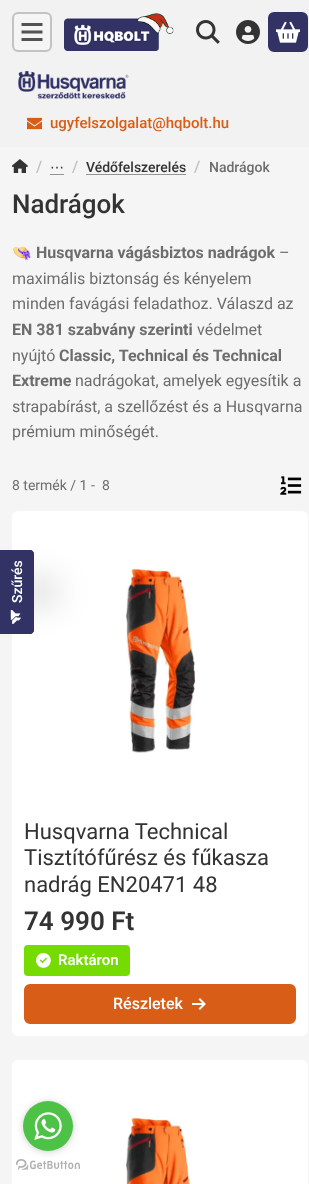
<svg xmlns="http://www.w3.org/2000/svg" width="309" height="1184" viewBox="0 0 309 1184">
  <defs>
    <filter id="blur1" x="-50%" y="-200%" width="200%" height="500%"><feGaussianBlur stdDeviation="15"/></filter>
    <filter id="blur2" x="-50%" y="-200%" width="200%" height="500%"><feGaussianBlur stdDeviation="3.5"/></filter>
  </defs>
  <rect width="100%" height="100%" fill="#f5f5f5"/>
  <rect x="0" y="0" width="309" height="147" fill="#f2f2f2"/>
  <rect x="13" y="13" width="38" height="38" rx="5" fill="#f5f5f5" stroke="#c2c2c2" stroke-width="2"/>
  <image x="21" y="23" width="22" height="18" href="img1.png"/>
  <image x="64" y="13" width="110" height="38" href="img2.png"/>
  <image x="196" y="20" width="24" height="24" href="img3.png"/>
  <image x="236" y="20" width="24" height="24" href="img4.png"/>
  <rect x="269" y="13" width="38" height="38" rx="5" fill="#323264" stroke="#323264" stroke-width="2"/>
  <image x="276" y="21" width="24" height="22" href="img5.png"/>
  <image x="18" y="71" width="111" height="28" href="img6.png"/>
  <image x="27" y="117" width="15" height="13" href="img7.png"/>
  <text x="50" y="128" font-family="Roboto" font-size="15" font-weight="500" fill="#d85d16">ugyfelszolgalat@hqbolt.hu</text>
  <image x="12" y="159" width="16" height="14" href="img8.png"/>
  <text x="36" y="172" font-family="Roboto" font-size="16" font-weight="500" fill="#c2c2c2">/</text>
  <text x="50" y="172" font-family="DejaVu Sans" font-size="14" fill="#333333">⋯</text>
  <rect x="50" y="174" width="14" height="1" fill="#949494"/>
  <text x="72" y="172" font-family="Roboto" font-size="16" font-weight="500" fill="#c2c2c2">/</text>
  <text x="86" y="172" font-family="Roboto" font-size="14" font-weight="500" fill="#333333">Védőfelszerelés</text>
  <rect x="86" y="174" width="100" height="1" fill="#949494"/>
  <text x="194" y="172" font-family="Roboto" font-size="16" font-weight="500" fill="#c2c2c2">/</text>
  <text x="209" y="172" font-family="Roboto" font-size="14" font-weight="500" fill="#6d6d6d">Nadrágok</text>
  <text x="12" y="213" font-family="Roboto" font-size="26" font-weight="500" fill="#333333">Nadrágok</text>
  <text x="12" y="258" font-family="Noto Color Emoji" font-size="16" font-weight="bold" fill="#6d6d6d">👒</text>
  <text x="36" y="258" font-family="Roboto" font-size="16" font-weight="bold" fill="#6d6d6d">Husqvarna vágásbiztos nadrágok</text>
  <text x="279" y="258" font-family="Roboto" font-size="16" fill="#6d6d6d">–</text>
  <text x="12" y="284" font-family="Roboto" font-size="16" fill="#6d6d6d">maximális biztonság és kényelem</text>
  <text x="12" y="309" font-family="Roboto" font-size="16" fill="#6d6d6d">minden favágási feladathoz. Válaszd az</text>
  <text x="12" y="335" font-family="Roboto" font-size="16" font-weight="bold" fill="#6d6d6d">EN 381 szabvány szerinti</text>
  <text x="197" y="335" font-family="Roboto" font-size="16" fill="#6d6d6d">védelmet</text>
  <text x="12" y="361" font-family="Roboto" font-size="16" fill="#6d6d6d">nyújtó</text>
  <text x="59" y="361" font-family="Roboto" font-size="16" font-weight="bold" fill="#6d6d6d">Classic, Technical és Technical</text>
  <text x="12" y="386" font-family="Roboto" font-size="16" font-weight="bold" fill="#6d6d6d">Extreme</text>
  <text x="75" y="386" font-family="Roboto" font-size="16" fill="#6d6d6d">nadrágokat, amelyek egyesítik a</text>
  <text x="12" y="412" font-family="Roboto" font-size="16" fill="#6d6d6d">strapabírást, a szellőzést és a Husqvarna</text>
  <text x="12" y="437" font-family="Roboto" font-size="16" fill="#6d6d6d">prémium minőségét.</text>
  <text x="12" y="490" font-family="Roboto" font-size="14" fill="#6d6d6d">8 termék / 1 -</text>
  <text x="102" y="490" font-family="Roboto" font-size="14" fill="#6d6d6d">8</text>
  <image x="280" y="476" width="22" height="19" href="img9.png"/>
  <rect x="12" y="511" width="296" height="525" rx="6" fill="#ffffff"/>
  <image x="126" y="568" width="70" height="185" href="img10.png"/>
  <text x="24" y="839" font-family="Roboto" font-size="22" fill="#333333">Husqvarna Technical</text>
  <text x="24" y="865" font-family="Roboto" font-size="22" fill="#333333">Tisztítófűrész és fűkasza</text>
  <text x="24" y="892" font-family="Roboto" font-size="22" fill="#333333">nadrág EN20471 48</text>
  <text x="24" y="930" font-family="Roboto" font-size="26" font-weight="600" fill="#333333">74 990 Ft</text>
  <rect x="25" y="946" width="104" height="29" rx="3" fill="#75db00" stroke="#75db00" stroke-width="2"/>
  <image x="36" y="953" width="15" height="15" href="img11.png"/>
  <text x="58" y="965" font-family="Roboto" font-size="15" font-weight="600" fill="#ffffff">Raktáron</text>
  <rect x="25" y="985" width="270" height="38" rx="5" fill="#d85d16" stroke="#d85d16" stroke-width="2"/>
  <text x="113" y="1009" font-family="Roboto" font-size="16" font-weight="500" fill="#ffffff">Részletek</text>
  <image x="192" y="998" width="14" height="12" href="img12.png"/>
  <rect x="12" y="1060" width="296" height="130" rx="6" fill="#ffffff"/>
  <image x="126" y="1117" width="66" height="67" href="img13.png"/>
  <rect x="-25" y="575" width="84" height="34" rx="4" fill="#000000" fill-opacity="0.1" filter="url(#blur1)"/>
  <path d="M0 634V550H30C32 550 34 552 34 554V630C34 632 32 634 30 634Z" fill="#323264"/>
  <path d="M1 633V551H30C31.5 551 33 552.5 33 554V630C33 631.5 31.5 633 30 633Z" fill="none" stroke="#323264" stroke-width="2"/>
  <text x="22" y="603" transform="rotate(-90 22 603)" font-family="Roboto" font-size="14" font-weight="500" fill="#ffffff">Szűrés</text>
  <image x="10" y="610" width="11" height="14" href="img14.png"/>
  <image x="16" y="1159" width="64" height="11" href="img16.png"/>
  <rect x="23" y="1102" width="50" height="50" rx="25" fill="#888888" fill-opacity="0.4" filter="url(#blur2)"/>
  <circle cx="48" cy="1126" r="25" fill="#4dc247"/>
  <image x="34" y="1112" width="28" height="28" href="img15.png"/>
</svg>
